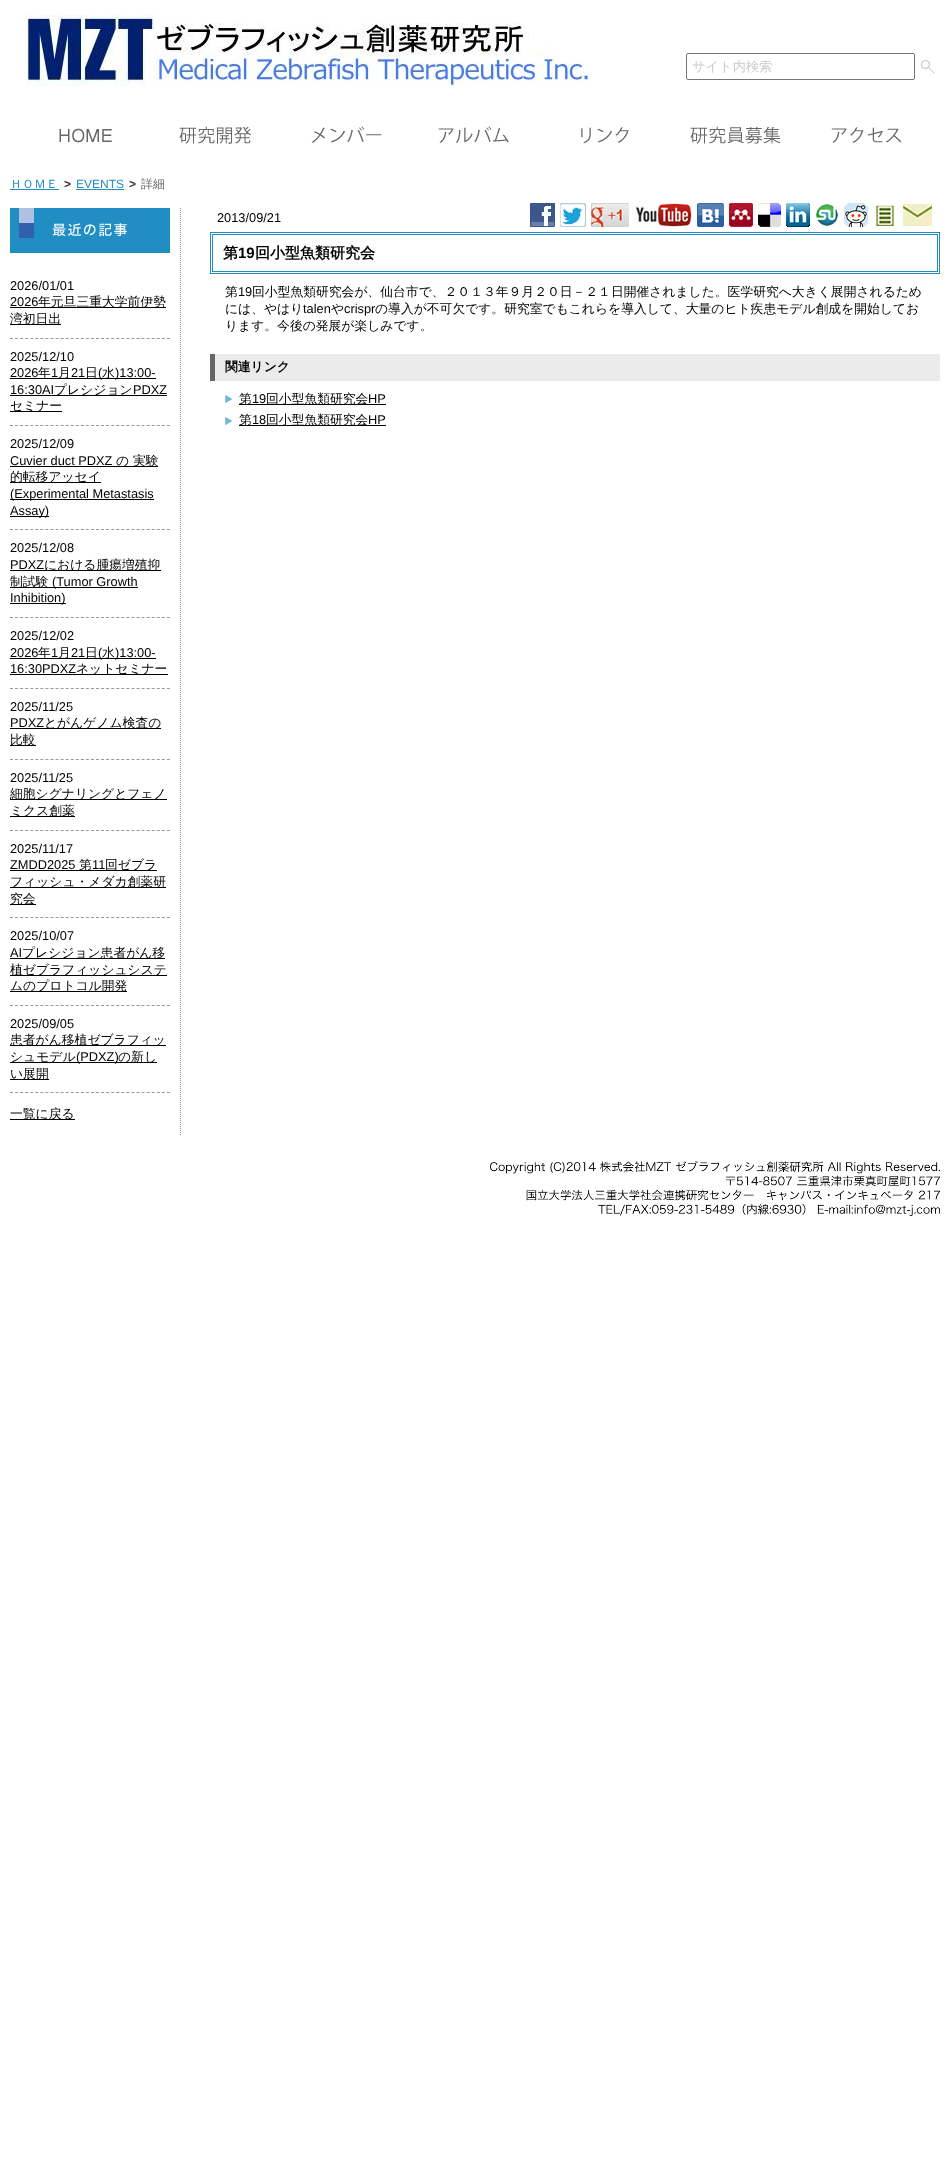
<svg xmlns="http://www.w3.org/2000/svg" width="950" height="2176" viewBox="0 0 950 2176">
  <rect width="100%" height="100%" fill="#ffffff"/>
  <image x="26" y="15" width="565" height="71" href="img1.png"/>
  <rect x="686.5" y="53.5" width="228" height="26" rx="1.5" fill="none" stroke="#767676"/>
  <text x="692" y="71" font-family="WenQuanYi Zen Hei" font-size="13.25" font-weight="500" fill="#cccccc">サイト内検索</text>
  <image x="921" y="60" width="14" height="14" href="img2.png"/>
  <image x="59" y="128" width="53" height="15" href="img3.png"/>
  <image x="179" y="126" width="73" height="18" href="img4.png"/>
  <image x="311" y="126" width="71" height="17" href="img5.png"/>
  <image x="438" y="126" width="71" height="17" href="img6.png"/>
  <image x="581" y="127" width="48" height="17" href="img7.png"/>
  <image x="690" y="126" width="91" height="18" href="img8.png"/>
  <image x="831" y="127" width="71" height="16" href="img9.png"/>
  <text x="10" y="188" font-family="WenQuanYi Zen Hei" font-size="12" font-weight="500" fill="#208dc3">ＨＯＭＥ</text>
  <rect x="10" y="189" width="49" height="1" fill="#208dc3"/>
  <text x="64" y="188" font-family="Liberation Sans" font-size="12" font-weight="bold" fill="#333333">&gt;</text>
  <text x="76" y="188" font-family="Liberation Sans" font-size="12" fill="#208dc3">EVENTS</text>
  <rect x="76" y="189" width="48" height="1" fill="#208dc3"/>
  <text x="129" y="188" font-family="Liberation Sans" font-size="12" font-weight="bold" fill="#333333">&gt;</text>
  <text x="141" y="188" font-family="WenQuanYi Zen Hei" font-size="12" font-weight="500" fill="#666666">詳細</text>
  <path d="M180.5 208V1136" fill="none" stroke="#999999" stroke-dasharray="1 1"/>
  <image x="10" y="208" width="160" height="45" href="img10.png"/>
  <path d="M10 338.5H170" fill="none" stroke="#999999" stroke-dasharray="3 2.06"/>
  <text x="10" y="290" font-family="Liberation Sans" font-size="12.8" fill="#000000">2026/01/01</text>
  <text x="10" y="306" font-family="Liberation Sans" font-size="12.8" fill="#000000">2026</text>
  <rect x="10" y="307" width="156" height="1" fill="#000000"/>
  <text x="38" y="306" font-family="WenQuanYi Zen Hei" font-size="12.8" font-weight="500" fill="#000000">年元旦三重大学前伊勢</text>
  <rect x="10" y="324" width="51" height="1" fill="#000000"/>
  <text x="10" y="323" font-family="WenQuanYi Zen Hei" font-size="12.8" font-weight="500" fill="#000000">湾初日出</text>
  <path d="M10 425.5H170" fill="none" stroke="#999999" stroke-dasharray="3 2.06"/>
  <text x="10" y="361" font-family="Liberation Sans" font-size="12.8" fill="#000000">2025/12/10</text>
  <text x="10" y="377" font-family="Liberation Sans" font-size="12.8" fill="#000000">2026</text>
  <rect x="10" y="378" width="146" height="1" fill="#000000"/>
  <text x="38" y="377" font-family="WenQuanYi Zen Hei" font-size="12.8" font-weight="500" fill="#000000">年</text>
  <text x="51" y="377" font-family="Liberation Sans" font-size="12.8" fill="#000000">1</text>
  <text x="58" y="377" font-family="WenQuanYi Zen Hei" font-size="12.8" font-weight="500" fill="#000000">月</text>
  <text x="71" y="377" font-family="Liberation Sans" font-size="12.8" fill="#000000">21</text>
  <text x="85" y="377" font-family="WenQuanYi Zen Hei" font-size="12.8" font-weight="500" fill="#000000">日</text>
  <text x="98" y="377" font-family="Liberation Sans" font-size="12.8" fill="#000000">(</text>
  <text x="102" y="377" font-family="WenQuanYi Zen Hei" font-size="12.8" font-weight="500" fill="#000000">水</text>
  <text x="115" y="377" font-family="Liberation Sans" font-size="12.8" fill="#000000">)13:00-</text>
  <text x="10" y="394" font-family="Liberation Sans" font-size="12.8" fill="#000000">16:30AI</text>
  <rect x="10" y="395" width="157" height="1" fill="#000000"/>
  <text x="54" y="394" font-family="WenQuanYi Zen Hei" font-size="12.8" font-weight="500" fill="#000000">プレシジョン</text>
  <text x="133" y="394" font-family="Liberation Sans" font-size="12.8" fill="#000000">PDXZ</text>
  <rect x="10" y="411" width="52" height="1" fill="#000000"/>
  <text x="10" y="410" font-family="WenQuanYi Zen Hei" font-size="12.8" font-weight="500" fill="#000000">セミナー</text>
  <path d="M10 529.5H170" fill="none" stroke="#999999" stroke-dasharray="3 2.06"/>
  <text x="10" y="448" font-family="Liberation Sans" font-size="12.8" fill="#000000">2025/12/09</text>
  <text x="10" y="465" font-family="Liberation Sans" font-size="12.8" fill="#000000">Cuvier duct PDXZ</text>
  <rect x="10" y="466" width="148" height="1" fill="#000000"/>
  <text x="116" y="465" font-family="WenQuanYi Zen Hei" font-size="12.8" font-weight="500" fill="#000000">の 実験</text>
  <rect x="10" y="482" width="91" height="1" fill="#000000"/>
  <text x="10" y="481" font-family="WenQuanYi Zen Hei" font-size="12.8" font-weight="500" fill="#000000">的転移アッセイ</text>
  <rect x="10" y="499" width="144" height="1" fill="#000000"/>
  <text x="10" y="498" font-family="Liberation Sans" font-size="12.8" fill="#000000">(Experimental Metastasis</text>
  <rect x="10" y="516" width="39" height="1" fill="#000000"/>
  <text x="10" y="515" font-family="Liberation Sans" font-size="12.8" fill="#000000">Assay)</text>
  <path d="M10 617.5H170" fill="none" stroke="#999999" stroke-dasharray="3 2.06"/>
  <text x="10" y="552" font-family="Liberation Sans" font-size="12.8" fill="#000000">2025/12/08</text>
  <text x="10" y="569" font-family="Liberation Sans" font-size="12.8" fill="#000000">PDXZ</text>
  <rect x="10" y="570" width="151" height="1" fill="#000000"/>
  <text x="44" y="569" font-family="WenQuanYi Zen Hei" font-size="12.8" font-weight="500" fill="#000000">における腫瘍増殖抑</text>
  <rect x="10" y="587" width="128" height="1" fill="#000000"/>
  <text x="10" y="586" font-family="WenQuanYi Zen Hei" font-size="12.8" font-weight="500" fill="#000000">制試験</text>
  <text x="52" y="586" font-family="Liberation Sans" font-size="12.8" fill="#000000">(Tumor Growth</text>
  <rect x="10" y="603" width="56" height="1" fill="#000000"/>
  <text x="10" y="602" font-family="Liberation Sans" font-size="12.8" fill="#000000">Inhibition)</text>
  <path d="M10 688.5H170" fill="none" stroke="#999999" stroke-dasharray="3 2.06"/>
  <text x="10" y="640" font-family="Liberation Sans" font-size="12.8" fill="#000000">2025/12/02</text>
  <text x="10" y="657" font-family="Liberation Sans" font-size="12.8" fill="#000000">2026</text>
  <rect x="10" y="658" width="146" height="1" fill="#000000"/>
  <text x="38" y="657" font-family="WenQuanYi Zen Hei" font-size="12.8" font-weight="500" fill="#000000">年</text>
  <text x="51" y="657" font-family="Liberation Sans" font-size="12.8" fill="#000000">1</text>
  <text x="58" y="657" font-family="WenQuanYi Zen Hei" font-size="12.8" font-weight="500" fill="#000000">月</text>
  <text x="71" y="657" font-family="Liberation Sans" font-size="12.8" fill="#000000">21</text>
  <text x="85" y="657" font-family="WenQuanYi Zen Hei" font-size="12.8" font-weight="500" fill="#000000">日</text>
  <text x="98" y="657" font-family="Liberation Sans" font-size="12.8" fill="#000000">(</text>
  <text x="102" y="657" font-family="WenQuanYi Zen Hei" font-size="12.8" font-weight="500" fill="#000000">水</text>
  <text x="115" y="657" font-family="Liberation Sans" font-size="12.8" fill="#000000">)13:00-</text>
  <text x="10" y="673" font-family="Liberation Sans" font-size="12.8" fill="#000000">16:30PDXZ</text>
  <rect x="10" y="674" width="158" height="1" fill="#000000"/>
  <text x="76" y="673" font-family="WenQuanYi Zen Hei" font-size="12.8" font-weight="500" fill="#000000">ネットセミナー</text>
  <path d="M10 759.5H170" fill="none" stroke="#999999" stroke-dasharray="3 2.06"/>
  <text x="10" y="711" font-family="Liberation Sans" font-size="12.8" fill="#000000">2025/11/25</text>
  <text x="10" y="727" font-family="Liberation Sans" font-size="12.8" fill="#000000">PDXZ</text>
  <rect x="10" y="728" width="151" height="1" fill="#000000"/>
  <text x="44" y="727" font-family="WenQuanYi Zen Hei" font-size="12.8" font-weight="500" fill="#000000">とがんゲノム検査の</text>
  <rect x="10" y="745" width="26" height="1" fill="#000000"/>
  <text x="10" y="744" font-family="WenQuanYi Zen Hei" font-size="12.8" font-weight="500" fill="#000000">比較</text>
  <path d="M10 830.5H170" fill="none" stroke="#999999" stroke-dasharray="3 2.06"/>
  <text x="10" y="782" font-family="Liberation Sans" font-size="12.8" fill="#000000">2025/11/25</text>
  <rect x="10" y="799" width="157" height="1" fill="#000000"/>
  <text x="10" y="798" font-family="WenQuanYi Zen Hei" font-size="12.8" font-weight="500" fill="#000000">細胞シグナリングとフェノ</text>
  <rect x="10" y="816" width="65" height="1" fill="#000000"/>
  <text x="10" y="815" font-family="WenQuanYi Zen Hei" font-size="12.8" font-weight="500" fill="#000000">ミクス創薬</text>
  <path d="M10 917.5H170" fill="none" stroke="#999999" stroke-dasharray="3 2.06"/>
  <text x="10" y="853" font-family="Liberation Sans" font-size="12.8" fill="#000000">2025/11/17</text>
  <text x="10" y="869" font-family="Liberation Sans" font-size="12.8" fill="#000000">ZMDD2025</text>
  <rect x="10" y="870" width="147" height="1" fill="#000000"/>
  <text x="79" y="869" font-family="WenQuanYi Zen Hei" font-size="12.8" font-weight="500" fill="#000000">第</text>
  <text x="92" y="869" font-family="Liberation Sans" font-size="12.8" fill="#000000">11</text>
  <text x="105" y="869" font-family="WenQuanYi Zen Hei" font-size="12.8" font-weight="500" fill="#000000">回ゼブラ</text>
  <rect x="10" y="887" width="156" height="1" fill="#000000"/>
  <text x="10" y="886" font-family="WenQuanYi Zen Hei" font-size="12.8" font-weight="500" fill="#000000">フィッシュ・メダカ創薬研</text>
  <rect x="10" y="904" width="26" height="1" fill="#000000"/>
  <text x="10" y="903" font-family="WenQuanYi Zen Hei" font-size="12.8" font-weight="500" fill="#000000">究会</text>
  <path d="M10 1005.5H170" fill="none" stroke="#999999" stroke-dasharray="3 2.06"/>
  <text x="10" y="940" font-family="Liberation Sans" font-size="12.8" fill="#000000">2025/10/07</text>
  <text x="10" y="957" font-family="Liberation Sans" font-size="12.8" fill="#000000">AI</text>
  <rect x="10" y="958" width="155" height="1" fill="#000000"/>
  <text x="22" y="957" font-family="WenQuanYi Zen Hei" font-size="12.8" font-weight="500" fill="#000000">プレシジョン患者がん移</text>
  <rect x="10" y="975" width="157" height="1" fill="#000000"/>
  <text x="10" y="974" font-family="WenQuanYi Zen Hei" font-size="12.8" font-weight="500" fill="#000000">植ゼブラフィッシュシステ</text>
  <rect x="10" y="991" width="117" height="1" fill="#000000"/>
  <text x="10" y="990" font-family="WenQuanYi Zen Hei" font-size="12.8" font-weight="500" fill="#000000">ムのプロトコル開発</text>
  <path d="M10 1092.5H170" fill="none" stroke="#999999" stroke-dasharray="3 2.06"/>
  <text x="10" y="1028" font-family="Liberation Sans" font-size="12.8" fill="#000000">2025/09/05</text>
  <rect x="10" y="1045" width="156" height="1" fill="#000000"/>
  <text x="10" y="1044" font-family="WenQuanYi Zen Hei" font-size="12.8" font-weight="500" fill="#000000">患者がん移植ゼブラフィッ</text>
  <rect x="10" y="1062" width="147" height="1" fill="#000000"/>
  <text x="10" y="1061" font-family="WenQuanYi Zen Hei" font-size="12.8" font-weight="500" fill="#000000">シュモデル</text>
  <text x="76" y="1061" font-family="Liberation Sans" font-size="12.8" fill="#000000">(PDXZ)</text>
  <text x="118" y="1061" font-family="WenQuanYi Zen Hei" font-size="12.8" font-weight="500" fill="#000000">の新し</text>
  <rect x="10" y="1079" width="39" height="1" fill="#000000"/>
  <text x="10" y="1078" font-family="WenQuanYi Zen Hei" font-size="12.8" font-weight="500" fill="#000000">い展開</text>
  <rect x="10" y="1119" width="65" height="1" fill="#000000"/>
  <text x="10" y="1118" font-family="WenQuanYi Zen Hei" font-size="12.8" font-weight="500" fill="#000000">一覧に戻る</text>
  <text x="217" y="222" font-family="Liberation Sans" font-size="12.8" fill="#000000">2013/09/21</text>
  <image x="530" y="203" width="25" height="24" href="img11.png"/>
  <image x="560" y="203" width="26" height="24" href="img12.png"/>
  <image x="591" y="203" width="38" height="24" href="img13.png"/>
  <image x="635" y="203" width="57" height="24" href="img14.png"/>
  <image x="697" y="203" width="27" height="24" href="img15.png"/>
  <image x="729" y="203" width="24" height="24" href="img16.png"/>
  <image x="758" y="203" width="23" height="24" href="img17.png"/>
  <image x="786" y="203" width="24" height="24" href="img18.png"/>
  <image x="816" y="204" width="22" height="22" href="img19.png"/>
  <image x="844" y="203" width="24" height="24" href="img20.png"/>
  <image x="873" y="204" width="22" height="23" href="img21.png"/>
  <image x="902" y="203" width="31" height="24" href="img22.png"/>
  <rect x="210.5" y="232.5" width="729" height="41" fill="none" stroke="#208dc3"/>
  <rect x="212.5" y="234.5" width="725" height="37" fill="none" stroke="#208dc3"/>
  <text x="223" y="258" font-family="WenQuanYi Zen Hei" font-size="15" font-weight="bold" fill="#000000">第</text>
  <text x="238" y="258" font-family="Liberation Sans" font-size="15" font-weight="bold" fill="#000000">19</text>
  <text x="255" y="258" font-family="WenQuanYi Zen Hei" font-size="15" font-weight="bold" fill="#000000">回小型魚類研究会</text>
  <text x="225" y="296" font-family="WenQuanYi Zen Hei" font-size="12.8" font-weight="500" fill="#000000">第</text>
  <text x="238" y="296" font-family="Liberation Sans" font-size="12.8" fill="#000000">19</text>
  <text x="252" y="296" font-family="WenQuanYi Zen Hei" font-size="12.8" font-weight="500" fill="#000000">回小型魚類研究会が、仙台市で、２０１３年９月２０日－２１日開催されました。医学研究へ大きく展開されるため</text>
  <text x="225" y="313" font-family="WenQuanYi Zen Hei" font-size="12.8" font-weight="500" fill="#000000">には、やはり</text>
  <text x="303" y="313" font-family="Liberation Sans" font-size="12.8" fill="#000000">talen</text>
  <text x="331" y="313" font-family="WenQuanYi Zen Hei" font-size="12.8" font-weight="500" fill="#000000">や</text>
  <text x="344" y="313" font-family="Liberation Sans" font-size="12.8" fill="#000000">crispr</text>
  <text x="375" y="313" font-family="WenQuanYi Zen Hei" font-size="12.8" font-weight="500" fill="#000000">の導入が不可欠です。研究室でもこれらを導入して、大量のヒト疾患モデル創成を開始してお</text>
  <text x="225" y="330" font-family="WenQuanYi Zen Hei" font-size="12.8" font-weight="500" fill="#000000">ります。今後の発展が楽しみです。</text>
  <rect x="215" y="354" width="725" height="27" fill="#ebebeb"/>
  <rect x="210" y="354" width="5" height="27" fill="#666666"/>
  <text x="225" y="371" font-family="WenQuanYi Zen Hei" font-size="12.8" font-weight="bold" fill="#000000">関連リンク</text>
  <image x="225" y="395" width="8" height="8" href="img23.png"/>
  <rect x="239" y="404" width="147" height="1" fill="#000000"/>
  <text x="239" y="403" font-family="WenQuanYi Zen Hei" font-size="12.8" font-weight="500" fill="#000000">第</text>
  <text x="252" y="403" font-family="Liberation Sans" font-size="12.8" fill="#000000">19</text>
  <text x="266" y="403" font-family="WenQuanYi Zen Hei" font-size="12.8" font-weight="500" fill="#000000">回小型魚類研究会</text>
  <text x="368" y="403" font-family="Liberation Sans" font-size="12.8" fill="#000000">HP</text>
  <image x="225" y="417" width="8" height="8" href="img23.png"/>
  <rect x="239" y="425" width="147" height="1" fill="#000000"/>
  <text x="239" y="424" font-family="WenQuanYi Zen Hei" font-size="12.8" font-weight="500" fill="#000000">第</text>
  <text x="252" y="424" font-family="Liberation Sans" font-size="12.8" fill="#000000">18</text>
  <text x="266" y="424" font-family="WenQuanYi Zen Hei" font-size="12.8" font-weight="500" fill="#000000">回小型魚類研究会</text>
  <text x="368" y="424" font-family="Liberation Sans" font-size="12.8" fill="#000000">HP</text>
  <image x="490" y="1161" width="450" height="55" href="img24.png"/>
</svg>
